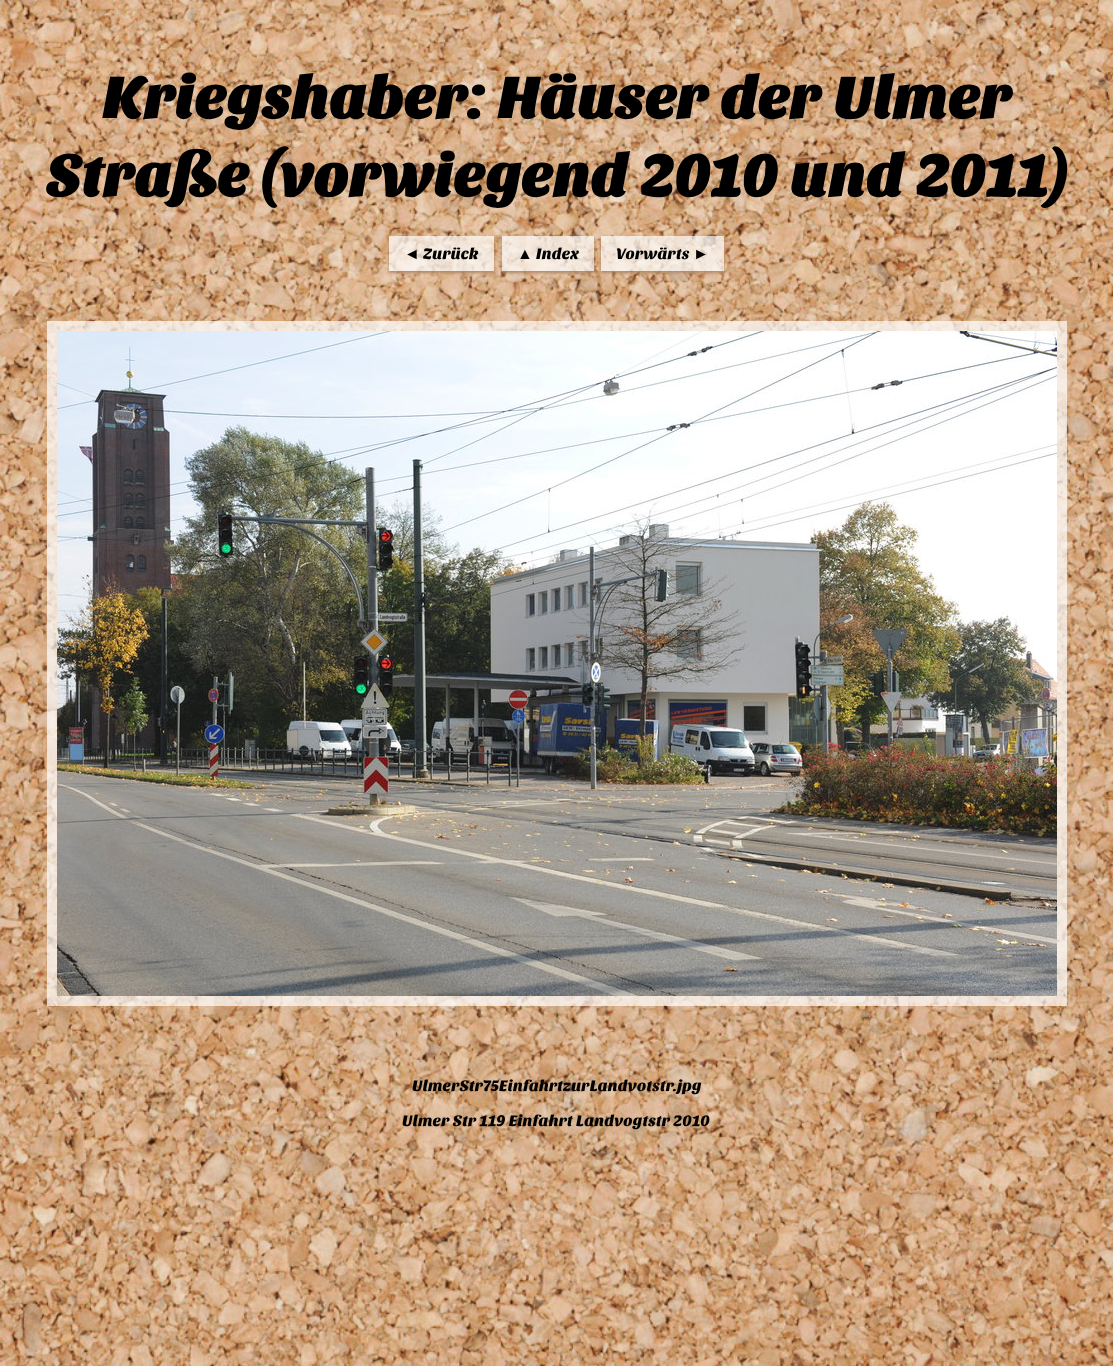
<svg xmlns="http://www.w3.org/2000/svg" width="1113" height="1366" viewBox="0 0 1113 1366">
  <defs>
    <clipPath id="clip1"><path d="M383 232H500V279H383ZM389 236H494V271H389Z" clip-rule="evenodd"/></clipPath>
    <filter id="blur1" x="-50%" y="-200%" width="200%" height="500%"><feGaussianBlur stdDeviation="1.5"/></filter>
    <clipPath id="clip2"><path d="M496 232H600V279H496ZM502 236H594V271H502Z" clip-rule="evenodd"/></clipPath>
    <clipPath id="clip3"><path d="M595 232H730V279H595ZM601 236H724V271H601Z" clip-rule="evenodd"/></clipPath>
  </defs>
  <rect width="100%" height="100%" fill="#ffffff"/>
  <image x="0" y="0" width="1113" height="1366" href="img1.png"/>
  <text x="102" y="118" font-family="Sansita One" font-size="60" font-weight="bold" fill="#000000">Kriegshaber: Häuser der Ulmer</text>
  <text x="46" y="196" font-family="Sansita One" font-size="60" font-weight="bold" fill="#000000">Straße (vorwiegend 2010 und 2011)</text>
  <g clip-path="url(#clip1)">
    <rect x="389" y="238" width="105" height="35" fill="#b08868" filter="url(#blur1)"/>
  </g>
  <rect x="389" y="236" width="105" height="35" fill="#ffffff" fill-opacity="0.7"/>
  <text x="404" y="259" font-family="Liberation Sans" font-size="16" fill="#000000">◄</text>
  <text x="423" y="259" font-family="Sansita One" font-size="16" fill="#000000">Zurück</text>
  <g clip-path="url(#clip2)">
    <rect x="502" y="238" width="92" height="35" fill="#b08868" filter="url(#blur1)"/>
  </g>
  <rect x="502" y="236" width="92" height="35" fill="#ffffff" fill-opacity="0.7"/>
  <text x="517" y="259" font-family="Liberation Sans" font-size="16" fill="#000000">▲</text>
  <text x="536" y="259" font-family="Sansita One" font-size="16" fill="#000000">Index</text>
  <g clip-path="url(#clip3)">
    <rect x="601" y="238" width="123" height="35" fill="#b08868" filter="url(#blur1)"/>
  </g>
  <rect x="601" y="236" width="123" height="35" fill="#ffffff" fill-opacity="0.7"/>
  <text x="616" y="259" font-family="Sansita One" font-size="16" fill="#000000">Vorwärts</text>
  <text x="693" y="259" font-family="Liberation Sans" font-size="16" fill="#000000">►</text>
  <rect x="52" y="326" width="1010" height="675" fill="none" stroke="#ffffff" stroke-opacity="0.7" stroke-width="10"/>
  <image x="57" y="331" width="1000" height="665" href="img2.png"/>
  <text x="412" y="1091" font-family="Sansita One" font-size="16" fill="#000000">UlmerStr75EinfahrtzurLandvotstr.jpg</text>
  <text x="402" y="1126" font-family="Sansita One" font-size="16" fill="#000000">Ulmer Str 119 Einfahrt Landvogtstr 2010</text>
</svg>
